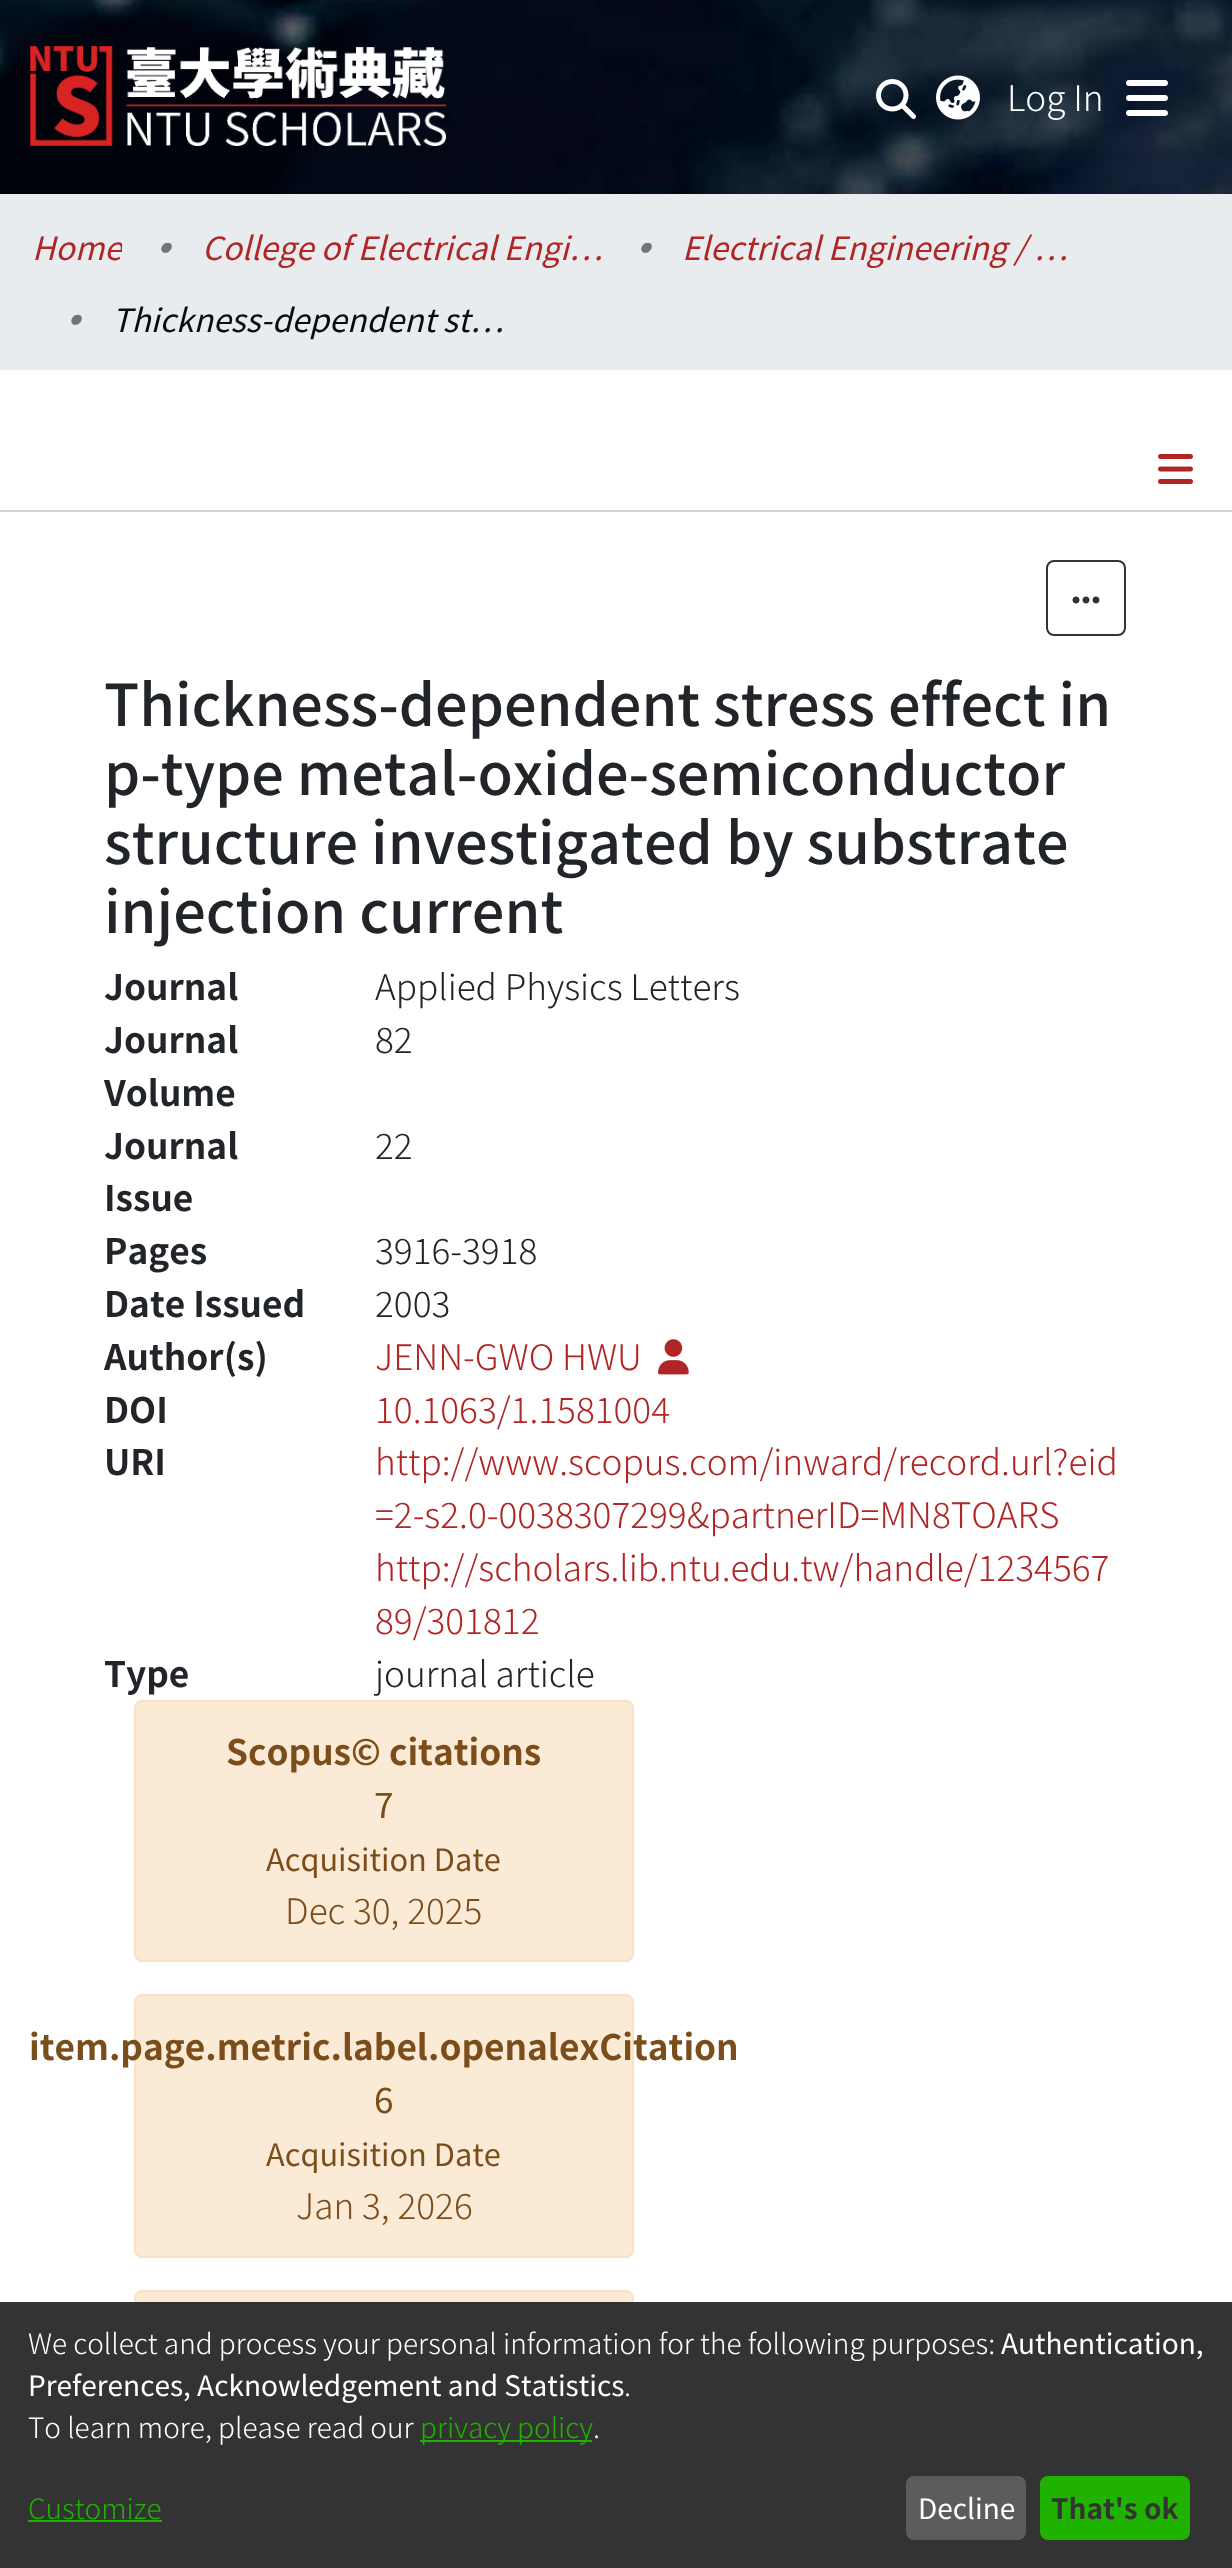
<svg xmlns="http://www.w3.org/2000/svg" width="1232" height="2568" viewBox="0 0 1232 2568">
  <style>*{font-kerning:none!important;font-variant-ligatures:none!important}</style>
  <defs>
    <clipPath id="clip1"><rect x="32" y="222" width="90" height="48"/></clipPath>
  </defs>
  <rect width="100%" height="100%" fill="#ffffff"/>
  <image x="0" y="0" width="1232" height="194" href="img1.png"/>
  <image x="30" y="46" width="416" height="100" href="img2.png"/>
  <image x="876" y="79" width="40" height="40" href="img3.png"/>
  <image x="936" y="75" width="44" height="45" href="img4.png"/>
  <text x="1007" y="111" font-family="Noto Sans TC" font-size="35.2" font-weight="300" fill="#ffffff">Log In</text>
  <image x="1126" y="80" width="42" height="36" href="img5.png"/>
  <rect x="0" y="194" width="1232" height="176" fill="#e9ecef"/>
  <g clip-path="url(#clip1)">
    <text x="32" y="260" font-family="Noto Sans TC" font-size="32" font-style="italic" fill="#b02626">Home</text>
  </g>
  <text x="138" y="266" font-family="Noto Sans TC" font-size="48" font-style="italic" fill="#6c757d">•</text>
  <text x="202" y="260" font-family="Noto Sans TC" font-size="32" font-style="italic" fill="#b02626">College of Electrical Engi…</text>
  <text x="618" y="266" font-family="Noto Sans TC" font-size="48" font-style="italic" fill="#6c757d">•</text>
  <text x="682" y="260" font-family="Noto Sans TC" font-size="32" font-style="italic" fill="#b02626">Electrical Engineering / …</text>
  <text x="48" y="338" font-family="Noto Sans TC" font-size="48" font-style="italic" fill="#6c757d">•</text>
  <text x="112" y="332" font-family="Noto Sans TC" font-size="32" font-style="italic" fill="#040d11">Thickness-dependent st…</text>
  <image x="1158" y="454" width="35" height="30" href="img6.png"/>
  <rect x="0" y="510" width="1232" height="2" fill="#ced4da"/>
  <rect x="1047" y="561" width="78" height="74" rx="7" fill="none" stroke="#333333" stroke-width="2"/>
  <image x="1072" y="596" width="28" height="8" href="img7.png"/>
  <text x="104" y="726" font-family="Noto Sans TC" font-size="57.6" font-weight="500" fill="#212529">Thickness-dependent stress effect in</text>
  <text x="104" y="795" font-family="Noto Sans TC" font-size="57.6" font-weight="500" fill="#212529">p-type metal-oxide-semiconductor</text>
  <text x="104" y="864" font-family="Noto Sans TC" font-size="57.6" font-weight="500" fill="#212529">structure investigated</text>
  <text x="726" y="864" font-family="Noto Sans TC" font-size="57.6" font-weight="500" fill="#212529">by substrate</text>
  <text x="104" y="933" font-family="Noto Sans TC" font-size="57.6" font-weight="500" fill="#212529">injection current</text>
  <text x="104" y="1000" font-family="Noto Sans TC" font-size="35.2" font-weight="bold" fill="#212529">Journal</text>
  <text x="375" y="1000" font-family="Noto Sans TC" font-size="35.2" font-weight="300" fill="#212529">Applied Physics Letters</text>
  <text x="104" y="1053" font-family="Noto Sans TC" font-size="35.2" font-weight="bold" fill="#212529">Journal</text>
  <text x="104" y="1106" font-family="Noto Sans TC" font-size="35.2" font-weight="bold" fill="#212529">Volume</text>
  <text x="375" y="1053" font-family="Noto Sans TC" font-size="35.2" font-weight="300" fill="#212529">82</text>
  <text x="104" y="1159" font-family="Noto Sans TC" font-size="35.2" font-weight="bold" fill="#212529">Journal</text>
  <text x="104" y="1211" font-family="Noto Sans TC" font-size="35.2" font-weight="bold" fill="#212529">Issue</text>
  <text x="375" y="1159" font-family="Noto Sans TC" font-size="35.2" font-weight="300" fill="#212529">22</text>
  <text x="104" y="1264" font-family="Noto Sans TC" font-size="35.2" font-weight="bold" fill="#212529">Pages</text>
  <text x="375" y="1264" font-family="Noto Sans TC" font-size="35.2" font-weight="300" fill="#212529">3916-3918</text>
  <text x="104" y="1317" font-family="Noto Sans TC" font-size="35.2" font-weight="bold" fill="#212529">Date Issued</text>
  <text x="375" y="1317" font-family="Noto Sans TC" font-size="35.2" font-weight="300" fill="#212529">2003</text>
  <text x="104" y="1370" font-family="Noto Sans TC" font-size="35.2" font-weight="bold" fill="#212529">Author(s)</text>
  <text x="375" y="1370" font-family="Noto Sans TC" font-size="35.2" font-weight="300" fill="#b02626">JENN-GWO HWU</text>
  <image x="658" y="1339" width="31" height="36" href="img8.png"/>
  <text x="104" y="1423" font-family="Noto Sans TC" font-size="35.2" font-weight="bold" fill="#212529">DOI</text>
  <text x="375" y="1423" font-family="Noto Sans TC" font-size="35.2" font-weight="300" fill="#b02626">10.1063/1.1581004</text>
  <text x="104" y="1475" font-family="Noto Sans TC" font-size="35.2" font-weight="bold" fill="#212529">URI</text>
  <text x="375" y="1475" font-family="Noto Sans TC" font-size="35.2" font-weight="300" fill="#b02626">http://www.scopus.com/inward/record.url?eid</text>
  <text x="375" y="1528" font-family="Noto Sans TC" font-size="35.2" font-weight="300" fill="#b02626">=2-s2.0-0038307299&amp;partnerID=MN8TOARS</text>
  <text x="375" y="1581" font-family="Noto Sans TC" font-size="35.2" font-weight="300" fill="#b02626">http://scholars.lib.ntu.edu.tw/handle/1234567</text>
  <text x="375" y="1634" font-family="Noto Sans TC" font-size="35.2" font-weight="300" fill="#b02626">89/301812</text>
  <text x="104" y="1687" font-family="Noto Sans TC" font-size="35.2" font-weight="bold" fill="#212529">Type</text>
  <text x="375" y="1687" font-family="Noto Sans TC" font-size="35.2" font-weight="300" fill="#212529">journal article</text>
  <rect x="135" y="1701" width="498" height="260" rx="7" fill="#fbead6" stroke="#fae1c6" stroke-width="2"/>
  <text x="226" y="1765" font-family="Noto Sans TC" font-size="35.2" font-weight="bold" fill="#7b4d1b">Scopus© citations</text>
  <text x="374" y="1818" font-family="Noto Sans TC" font-size="35.2" fill="#7b4d1b">7</text>
  <text x="266" y="1871" font-family="Noto Sans TC" font-size="30.75" fill="#7b4d1b">Acquisition Date</text>
  <text x="285" y="1924" font-family="Noto Sans TC" font-size="35.2" font-weight="300" fill="#7b4d1b">Dec 30, 2025</text>
  <rect x="135" y="1995" width="498" height="262" rx="7" fill="#fbead6" stroke="#fae1c6" stroke-width="2"/>
  <text x="29" y="2060" font-family="Noto Sans TC" font-size="35.2" font-weight="bold" fill="#7b4d1b">item.page.metric.label.openalexCitation</text>
  <text x="374" y="2113" font-family="Noto Sans TC" font-size="35.2" fill="#7b4d1b">6</text>
  <text x="266" y="2166" font-family="Noto Sans TC" font-size="30.75" fill="#7b4d1b">Acquisition Date</text>
  <text x="296" y="2219" font-family="Noto Sans TC" font-size="35.2" font-weight="300" fill="#7b4d1b">Jan 3, 2026</text>
  <rect x="135" y="2291" width="498" height="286" rx="7" fill="#fbead6" stroke="#fae1c6" stroke-width="2"/>
  <rect x="0" y="2302" width="1232" height="266" fill="#333333"/>
  <text x="28" y="2354" font-family="Noto Sans TC" font-size="28" font-weight="300" fill="#ffffff">We collect and process your personal information for the following purposes:</text>
  <text x="1001" y="2354" font-family="Noto Sans TC" font-size="28" fill="#ffffff">Authentication,</text>
  <text x="28" y="2396" font-family="Noto Sans TC" font-size="28" fill="#ffffff">Preferences, Acknowledgement and Statistics</text>
  <text x="624" y="2396" font-family="Noto Sans TC" font-size="28" font-weight="300" fill="#ffffff">.</text>
  <text x="28" y="2438" font-family="Noto Sans TC" font-size="28" font-weight="300" fill="#ffffff">To learn more, please read our</text>
  <rect x="420" y="2440" width="172" height="2" fill="#1fb300"/>
  <text x="420" y="2438" font-family="Noto Sans TC" font-size="28" font-weight="300" fill="#1fb300">privacy policy</text>
  <text x="593" y="2438" font-family="Noto Sans TC" font-size="28" font-weight="300" fill="#ffffff">.</text>
  <text x="28" y="2519" font-family="Noto Sans TC" font-size="28" font-weight="300" fill="#1fb300">Customize</text>
  <rect x="28" y="2520" width="134" height="2" fill="#1fb300"/>
  <rect x="906" y="2476" width="120" height="64" rx="8" fill="#5c5c5c"/>
  <text x="918" y="2519" font-family="Noto Sans TC" font-size="28" fill="#ffffff">Decline</text>
  <rect x="1040" y="2476" width="150" height="64" rx="8" fill="#1fb300"/>
  <text x="1051" y="2519" font-family="Noto Sans TC" font-size="28" font-weight="bold" fill="#333333">That's ok</text>
</svg>
